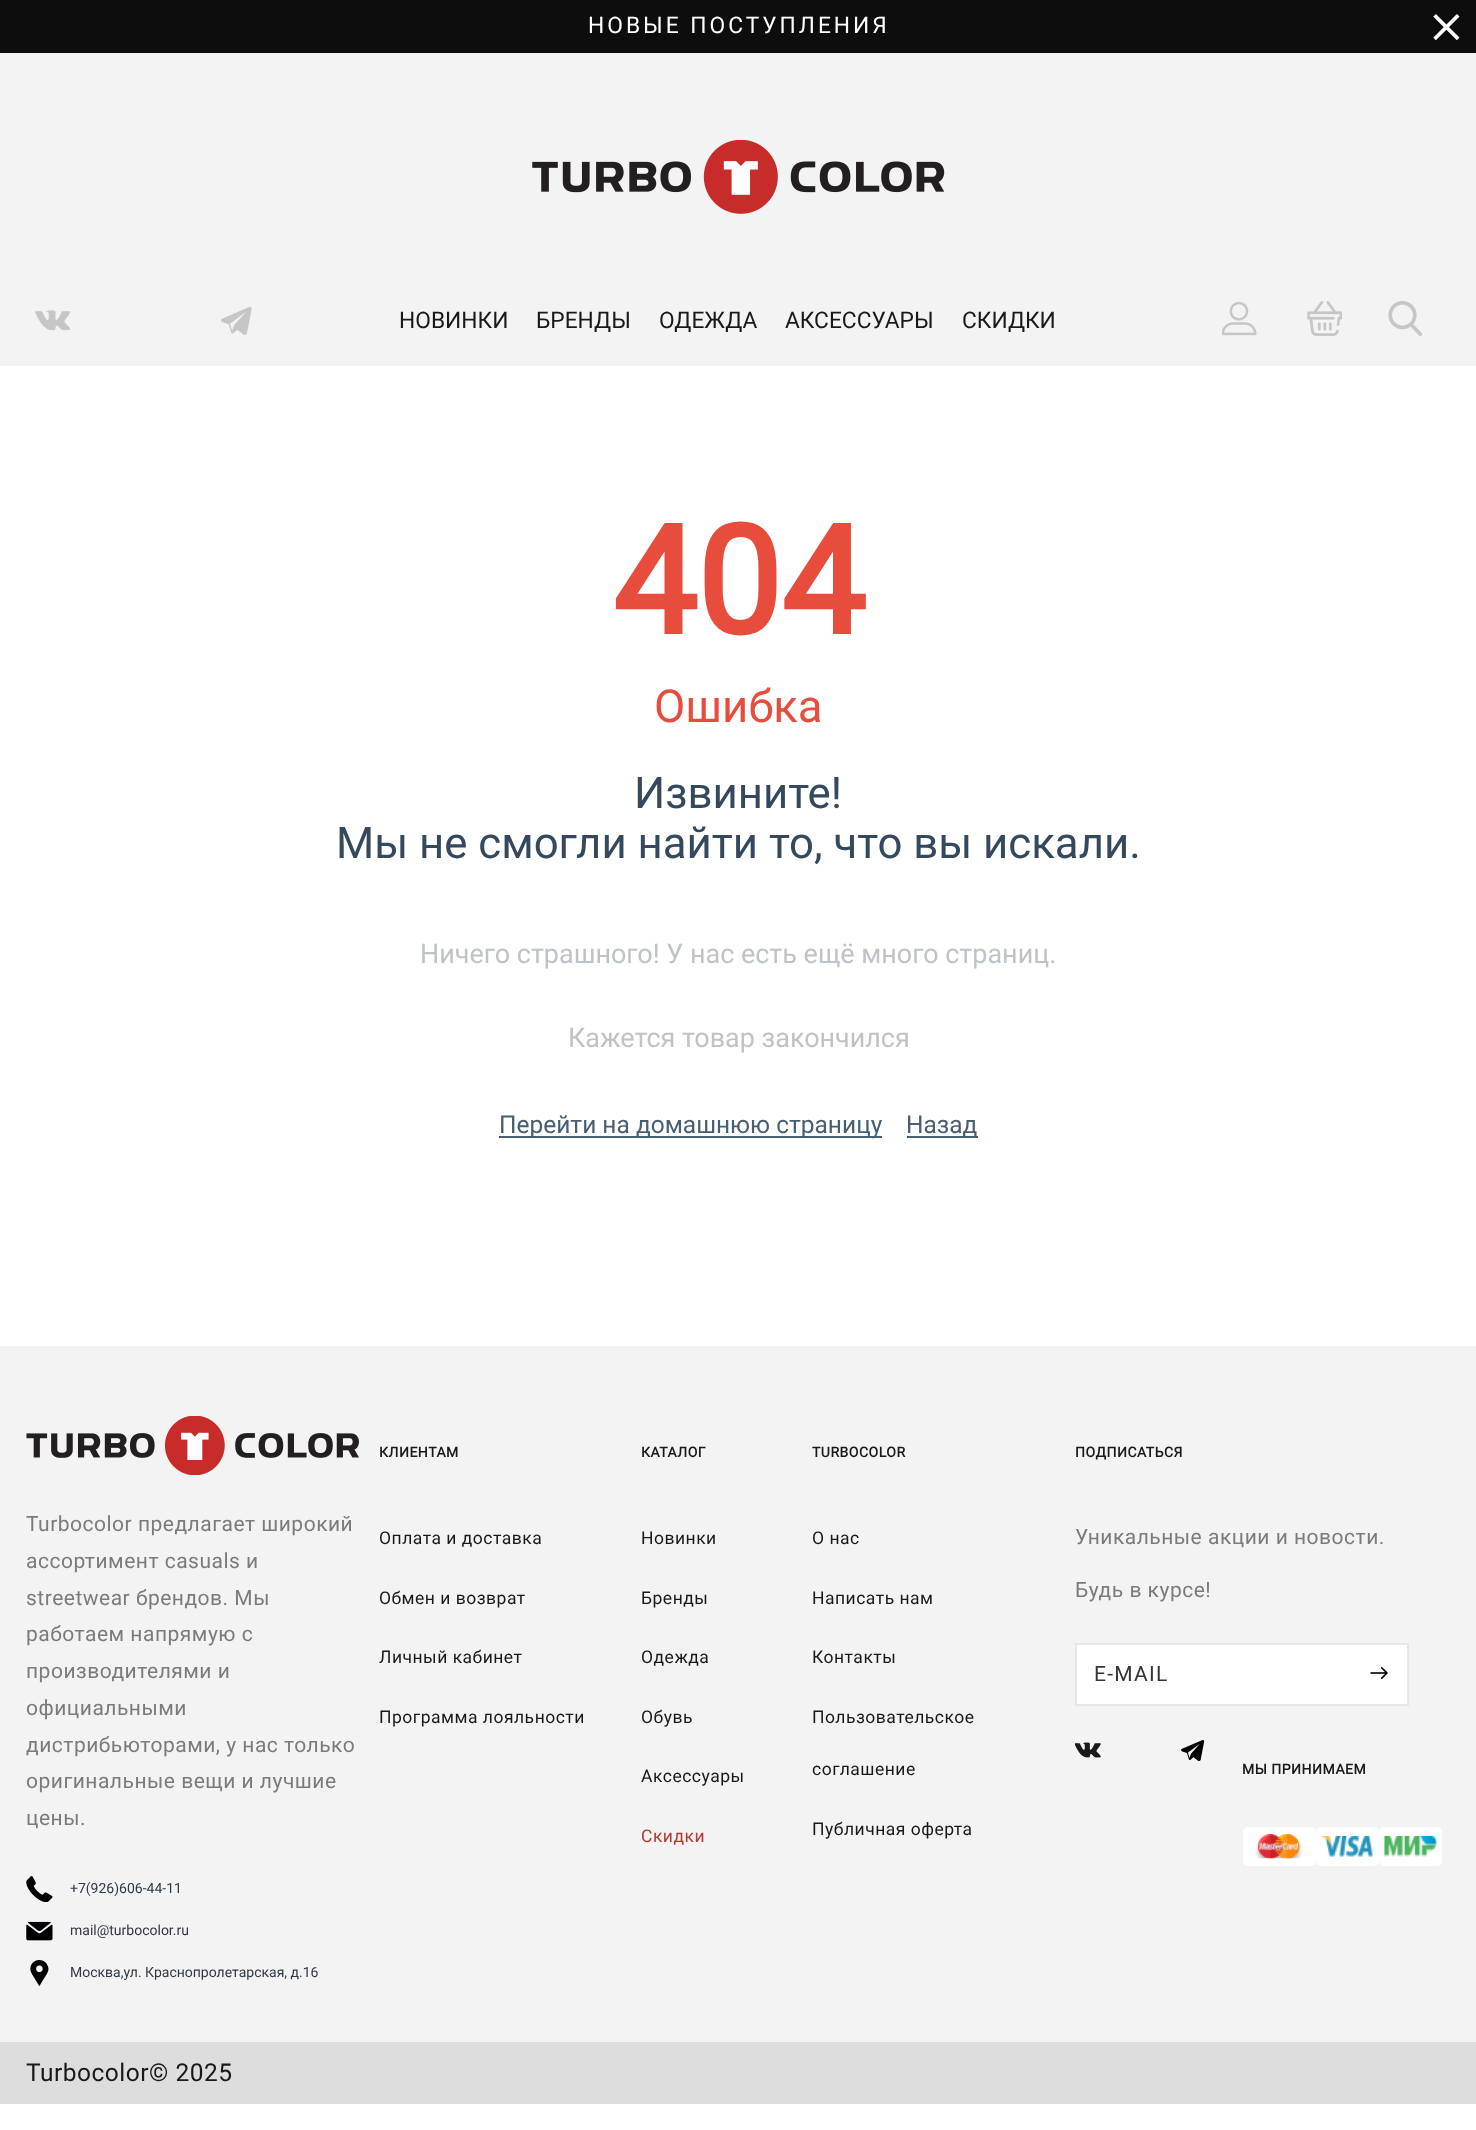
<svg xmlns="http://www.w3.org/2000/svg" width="1476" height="2130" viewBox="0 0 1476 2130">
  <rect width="100%" height="100%" fill="#ffffff"/>
  <rect x="0" y="53" width="1476" height="313" fill="#f3f3f3"/>
  <rect x="0" y="0" width="1476" height="53" fill="#0d0d0d"/>
  <text x="588" y="33" font-family="Roboto" font-size="22.75" letter-spacing="3" fill="#ffffff">НОВЫЕ ПОСТУПЛЕНИЯ</text>
  <image x="1433" y="14" width="27" height="26" href="img1.png"/>
  <image x="532" y="140" width="413" height="74" href="img2.png"/>
  <image x="35" y="310" width="35" height="21" href="img3.png"/>
  <image x="221" y="307" width="31" height="28" href="img4.png"/>
  <text x="399" y="328" font-family="Roboto" font-size="22.75" fill="#1a1919">НОВИНКИ</text>
  <text x="536" y="328" font-family="Roboto" font-size="22.75" fill="#1a1919">БРЕНДЫ</text>
  <text x="659" y="328" font-family="Roboto" font-size="22.75" fill="#1a1919">ОДЕЖДА</text>
  <text x="785" y="328" font-family="Roboto" font-size="22.75" fill="#1a1919">АКСЕССУАРЫ</text>
  <text x="962" y="328" font-family="Roboto" font-size="22.75" fill="#1a1919">СКИДКИ</text>
  <image x="1222" y="301" width="35" height="35" href="img5.png"/>
  <image x="1307" y="301" width="35" height="35" href="img6.png"/>
  <image x="1388" y="301" width="34" height="35" href="img7.png"/>
  <text x="612" y="634" font-family="Roboto" font-size="150" font-weight="bold" fill="#e74c3c">404</text>
  <text x="654" y="722" font-family="Roboto" font-size="45.5" fill="#e74c3c">Ошибка</text>
  <text x="634" y="808" font-family="Roboto" font-size="43.75" fill="#34495e">Извините!</text>
  <text x="336" y="858" font-family="Roboto" font-size="43.75" fill="#34495e">Мы не смогли найти то, что вы искали.</text>
  <text x="420" y="963" font-family="Roboto" font-size="26.95" fill="#bdc3c7">Ничего страшного! У нас есть ещё много страниц.</text>
  <text x="568" y="1047" font-family="Roboto" font-size="26.95" fill="#bdc3c7">Кажется товар закончился</text>
  <rect x="499" y="1136" width="383" height="2" fill="#465f73"/>
  <text x="499" y="1133" font-family="Roboto" font-size="24.5" fill="#465f73">Перейти на домашнюю страницу</text>
  <rect x="907" y="1136" width="71" height="2" fill="#465f73"/>
  <text x="906" y="1133" font-family="Roboto" font-size="24.5" fill="#465f73">Назад</text>
  <rect x="0" y="1346" width="1476" height="696" fill="#f3f3f3"/>
  <image x="26" y="1416" width="333" height="59" href="img8.png"/>
  <text x="26" y="1531" font-family="Roboto" font-size="21" letter-spacing="0.5" fill="#7b7b7b">Turbocolor предлагает широкий</text>
  <text x="26" y="1568" font-family="Roboto" font-size="21" letter-spacing="0.5" fill="#7b7b7b">ассортимент casuals и</text>
  <text x="26" y="1605" font-family="Roboto" font-size="21" letter-spacing="0.5" fill="#7b7b7b">streetwear брендов. Мы</text>
  <text x="26" y="1641" font-family="Roboto" font-size="21" letter-spacing="0.5" fill="#7b7b7b">работаем напрямую с</text>
  <text x="26" y="1678" font-family="Roboto" font-size="21" letter-spacing="0.5" fill="#7b7b7b">производителями и</text>
  <text x="26" y="1715" font-family="Roboto" font-size="21" letter-spacing="0.5" fill="#7b7b7b">официальными</text>
  <text x="26" y="1752" font-family="Roboto" font-size="21" letter-spacing="0.5" fill="#7b7b7b">дистрибьюторами, у нас только</text>
  <text x="26" y="1788" font-family="Roboto" font-size="21" letter-spacing="0.5" fill="#7b7b7b">оригинальные вещи и лучшие</text>
  <text x="26" y="1825" font-family="Roboto" font-size="21" letter-spacing="0.5" fill="#7b7b7b">цены.</text>
  <image x="26" y="1876" width="27" height="26" href="img9.png"/>
  <text x="70" y="1893" font-family="Roboto" font-size="14" fill="#2e3a47">+7(926)606-44-11</text>
  <image x="26" y="1921" width="27" height="20" href="img10.png"/>
  <text x="70" y="1935" font-family="Roboto" font-size="14" fill="#2e3a47">mail@turbocolor.ru</text>
  <image x="30" y="1960" width="19" height="26" href="img11.png"/>
  <text x="70" y="1977" font-family="Roboto" font-size="14" fill="#2e3a47">Москва,ул. Краснопролетарская, д.16</text>
  <text x="379" y="1457" font-family="Roboto" font-size="14" font-weight="bold" letter-spacing="0.5" fill="#1a1919">КЛИЕНТАМ</text>
  <text x="379" y="1544" font-family="Roboto" font-size="17.5" letter-spacing="0.5" fill="#1a1919">Оплата и доставка</text>
  <text x="379" y="1604" font-family="Roboto" font-size="17.5" letter-spacing="0.5" fill="#1a1919">Обмен и возврат</text>
  <text x="379" y="1663" font-family="Roboto" font-size="17.5" letter-spacing="0.5" fill="#1a1919">Личный кабинет</text>
  <text x="379" y="1723" font-family="Roboto" font-size="17.5" letter-spacing="0.5" fill="#1a1919">Программа лояльности</text>
  <text x="641" y="1457" font-family="Roboto" font-size="14" font-weight="bold" letter-spacing="0.5" fill="#1a1919">КАТАЛОГ</text>
  <text x="641" y="1544" font-family="Roboto" font-size="17.5" letter-spacing="0.5" fill="#1a1919">Новинки</text>
  <text x="641" y="1604" font-family="Roboto" font-size="17.5" letter-spacing="0.5" fill="#1a1919">Бренды</text>
  <text x="641" y="1663" font-family="Roboto" font-size="17.5" letter-spacing="0.5" fill="#1a1919">Одежда</text>
  <text x="641" y="1723" font-family="Roboto" font-size="17.5" letter-spacing="0.5" fill="#1a1919">Обувь</text>
  <text x="641" y="1782" font-family="Roboto" font-size="17.5" letter-spacing="0.5" fill="#1a1919">Аксессуары</text>
  <text x="641" y="1842" font-family="Roboto" font-size="17.5" letter-spacing="0.5" fill="#b53730">Скидки</text>
  <text x="812" y="1457" font-family="Roboto" font-size="14" font-weight="bold" letter-spacing="0.5" fill="#1a1919">TURBOCOLOR</text>
  <text x="812" y="1544" font-family="Roboto" font-size="17.5" letter-spacing="0.5" fill="#1a1919">О нас</text>
  <text x="812" y="1604" font-family="Roboto" font-size="17.5" letter-spacing="0.5" fill="#1a1919">Написать нам</text>
  <text x="812" y="1663" font-family="Roboto" font-size="17.5" letter-spacing="0.5" fill="#1a1919">Контакты</text>
  <text x="812" y="1723" font-family="Roboto" font-size="17.5" letter-spacing="0.5" fill="#1a1919">Пользовательское</text>
  <text x="812" y="1775" font-family="Roboto" font-size="17.5" letter-spacing="0.5" fill="#1a1919">соглашение</text>
  <text x="812" y="1835" font-family="Roboto" font-size="17.5" letter-spacing="0.5" fill="#1a1919">Публичная оферта</text>
  <text x="1075" y="1457" font-family="Roboto" font-size="14" font-weight="bold" letter-spacing="0.5" fill="#1a1919">ПОДПИСАТЬСЯ</text>
  <text x="1075" y="1544" font-family="Roboto" font-size="21" letter-spacing="0.5" fill="#7b7b7b">Уникальные акции и новости.</text>
  <text x="1075" y="1597" font-family="Roboto" font-size="21" letter-spacing="0.5" fill="#7b7b7b">Будь в курсе!</text>
  <rect x="1076" y="1644" width="332" height="61" fill="#ffffff" stroke="#e8e6e6" stroke-width="2"/>
  <text x="1094" y="1681" font-family="Roboto" font-size="21" letter-spacing="1.25" fill="#353535">E-MAIL</text>
  <image x="1370" y="1667" width="18" height="12" href="img12.png"/>
  <image x="1075" y="1742" width="26" height="16" href="img13.png"/>
  <image x="1181" y="1740" width="24" height="21" href="img14.png"/>
  <text x="1242" y="1774" font-family="Roboto" font-size="14" font-weight="bold" letter-spacing="0.5" fill="#1a1919">МЫ ПРИНИМАЕМ</text>
  <rect x="1243" y="1827" width="73" height="39" rx="5" fill="#ffffff"/>
  <image x="1253" y="1834" width="50" height="25" href="img15.png"/>
  <rect x="1316" y="1827" width="63" height="39" rx="5" fill="#ffffff"/>
  <image x="1321" y="1835" width="52" height="22" href="img16.png"/>
  <rect x="1379" y="1827" width="63" height="39" rx="5" fill="#ffffff"/>
  <image x="1384" y="1835" width="53" height="22" href="img17.png"/>
  <rect x="0" y="2042" width="1476" height="62" fill="#dddddd"/>
  <text x="26" y="2081" font-family="Roboto" font-size="24.5" letter-spacing="0.5" fill="#1a1919">Turbocolor© 2025</text>
</svg>
